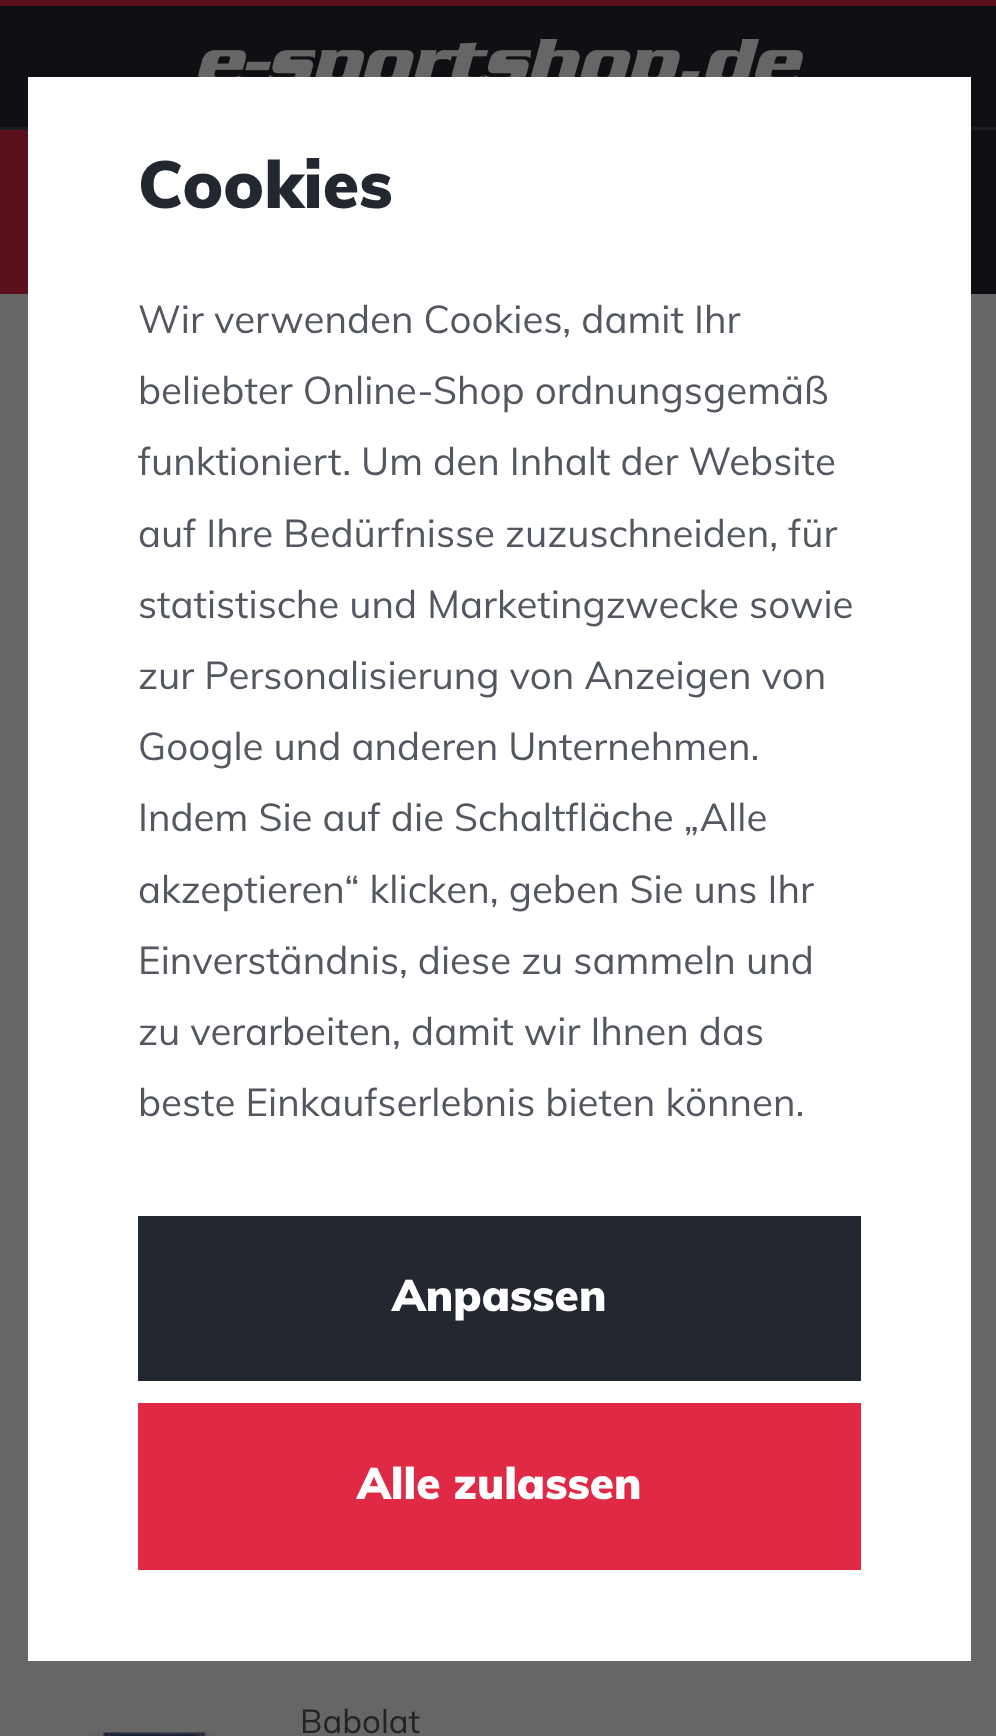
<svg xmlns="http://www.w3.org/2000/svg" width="996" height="1736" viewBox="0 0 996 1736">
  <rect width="100%" height="100%" fill="#666666"/>
  <rect x="0" y="6" width="996" height="288" fill="#0e1013"/>
  <rect x="0" y="0" width="996" height="6" fill="#59101c"/>
  <rect x="0" y="127" width="996" height="3" fill="#1b1d21"/>
  <image x="198" y="39" width="605" height="38" href="img1.png"/>
  <rect x="0" y="130" width="28" height="164" fill="#59101c"/>
  <rect x="28" y="77" width="943" height="1584" fill="#ffffff"/>
  <text x="138" y="208" font-family="Muli" font-size="66" font-weight="900" fill="#23272f">Cookies</text>
  <text x="138" y="333" font-family="Muli" font-size="38.5" fill="#535760">Wir verwenden Cookies, damit Ihr</text>
  <text x="138" y="404" font-family="Muli" font-size="38.5" fill="#535760">beliebter Online-Shop ordnungsgemäß</text>
  <text x="138" y="475" font-family="Muli" font-size="38.5" fill="#535760">funktioniert. Um den Inhalt der Website</text>
  <text x="138" y="547" font-family="Muli" font-size="38.5" fill="#535760">auf Ihre Bedürfnisse zuzuschneiden, für</text>
  <text x="138" y="618" font-family="Muli" font-size="38.5" fill="#535760">statistische und Marketingzwecke sowie</text>
  <text x="138" y="689" font-family="Muli" font-size="38.5" fill="#535760">zur Personalisierung von Anzeigen von</text>
  <text x="138" y="760" font-family="Muli" font-size="38.5" fill="#535760">Google und anderen Unternehmen.</text>
  <text x="138" y="831" font-family="Muli" font-size="38.5" fill="#535760">Indem Sie auf die Schaltfläche „Alle</text>
  <text x="138" y="903" font-family="Muli" font-size="38.5" fill="#535760">akzeptieren“ klicken, geben Sie uns Ihr</text>
  <text x="138" y="974" font-family="Muli" font-size="38.5" fill="#535760">Einverständnis, diese zu sammeln und</text>
  <text x="138" y="1045" font-family="Muli" font-size="38.5" fill="#535760">zu verarbeiten, damit wir Ihnen das</text>
  <text x="138" y="1116" font-family="Muli" font-size="38.5" fill="#535760">beste Einkaufserlebnis bieten können.</text>
  <rect x="138" y="1216" width="723" height="165" fill="#23272f"/>
  <text x="392" y="1311" font-family="Muli" font-size="44" font-weight="900" fill="#ffffff">Anpassen</text>
  <rect x="138" y="1403" width="723" height="167" fill="#df2945"/>
  <text x="357" y="1499" font-family="Muli" font-size="44" font-weight="900" fill="#ffffff">Alle zulassen</text>
  <image x="90" y="1732" width="128" height="4" href="img2.png"/>
  <text x="300" y="1733" font-family="Muli" font-size="33" fill="#212326">Babolat</text>
</svg>
